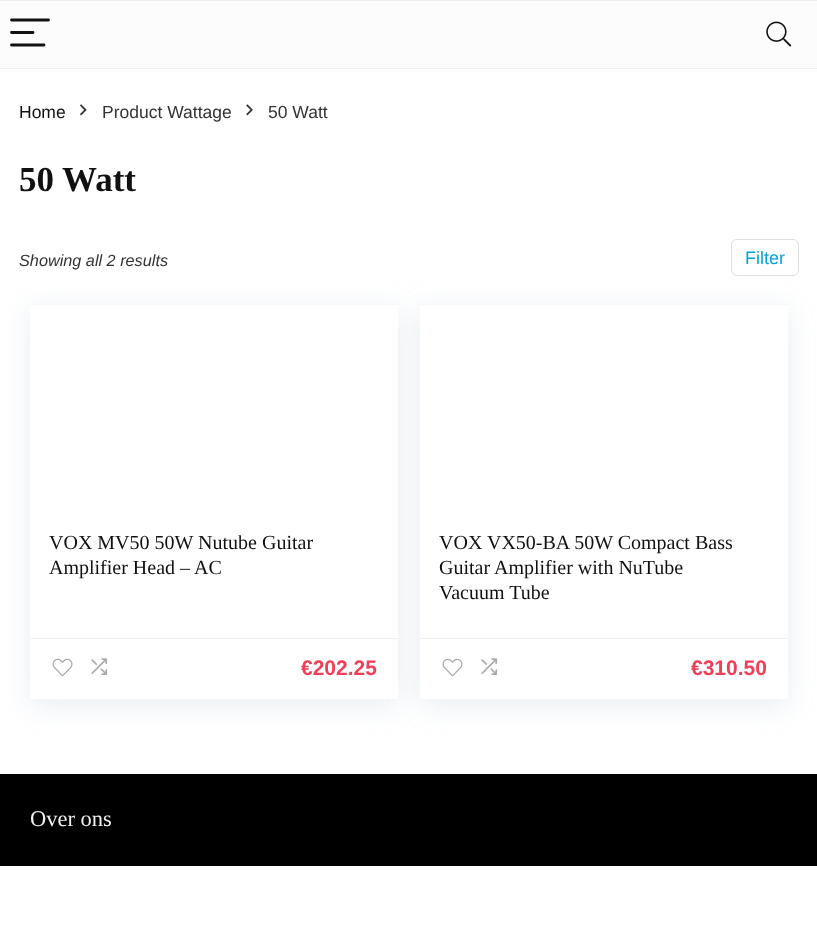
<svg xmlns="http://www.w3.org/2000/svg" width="817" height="935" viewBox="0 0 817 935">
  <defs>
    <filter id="blur1" x="-50%" y="-200%" width="200%" height="500%"><feGaussianBlur stdDeviation="14.5"/></filter>
  </defs>
  <rect width="100%" height="100%" fill="#ffffff"/>
  <rect x="0" y="1" width="817" height="67" fill="#fcfcfc"/>
  <rect x="0" y="0" width="817" height="1" fill="#eeeeee"/>
  <rect x="0" y="68" width="817" height="1" fill="#eeeeee"/>
  <path d="M11.5 20H48.5M11.5 32.5H33M11.5 45H44" fill="none" stroke="#111111" stroke-width="2.8" stroke-linecap="round"/>
  <image x="766" y="21" width="26" height="26" href="img1.png"/>
  <text x="19" y="118" font-family="Liberation Sans" font-size="17.5" fill="#111111">Home</text>
  <image x="80" y="104" width="7" height="12" href="img2.png"/>
  <text x="102" y="118" font-family="Liberation Sans" font-size="17.5" fill="#333333">Product Wattage</text>
  <image x="246" y="104" width="7" height="12" href="img3.png"/>
  <text x="268" y="118" font-family="Liberation Sans" font-size="17.5" fill="#333333">50 Watt</text>
  <text x="19" y="191" font-family="Liberation Serif" font-size="35" font-weight="bold" fill="#111111">50 Watt</text>
  <text x="19" y="266" font-family="Liberation Sans" font-size="16.25" font-style="italic" fill="#333333">Showing all 2 results</text>
  <rect x="731.5" y="239.5" width="67" height="36" rx="5.5" fill="none" stroke="#dce0e0"/>
  <text x="745" y="264" font-family="Liberation Sans" font-size="18" fill="#0ba1dd">Filter</text>
  <rect x="30" y="310" width="368" height="395" fill="#bccfdb" fill-opacity="0.35" filter="url(#blur1)"/>
  <rect x="30" y="305" width="368" height="394" fill="#ffffff"/>
  <rect x="30" y="304" width="368" height="1" fill="#f8f8f8"/>
  <text x="49" y="549" font-family="Liberation Serif" font-size="20" fill="#111111">VOX MV50 50W Nutube Guitar</text>
  <text x="49" y="574" font-family="Liberation Serif" font-size="20" fill="#111111">Amplifier Head – AC</text>
  <rect x="30" y="638" width="368" height="1" fill="#f0f0f0"/>
  <image x="52" y="658" width="21" height="19" href="img4.png"/>
  <image x="91" y="658" width="17" height="17" href="img5.png"/>
  <text x="301" y="675" font-family="Liberation Sans" font-size="21" font-weight="bold" fill="#f04057">€202.25</text>
  <rect x="420" y="310" width="368" height="395" fill="#bccfdb" fill-opacity="0.35" filter="url(#blur1)"/>
  <rect x="420" y="305" width="368" height="394" fill="#ffffff"/>
  <rect x="420" y="304" width="368" height="1" fill="#f8f8f8"/>
  <text x="439" y="549" font-family="Liberation Serif" font-size="20" fill="#111111">VOX VX50-BA 50W Compact Bass</text>
  <text x="439" y="574" font-family="Liberation Serif" font-size="20" fill="#111111">Guitar Amplifier with NuTube</text>
  <text x="439" y="599" font-family="Liberation Serif" font-size="20" fill="#111111">Vacuum Tube</text>
  <rect x="420" y="638" width="368" height="1" fill="#f0f0f0"/>
  <image x="442" y="658" width="21" height="19" href="img4.png"/>
  <image x="481" y="658" width="17" height="17" href="img5.png"/>
  <text x="691" y="675" font-family="Liberation Sans" font-size="21" font-weight="bold" fill="#f04057">€310.50</text>
  <rect x="0" y="774" width="817" height="92" fill="#000000"/>
  <text x="30" y="826" font-family="Liberation Serif" font-size="22.5" fill="#f1f1f1">Over ons</text>
</svg>
